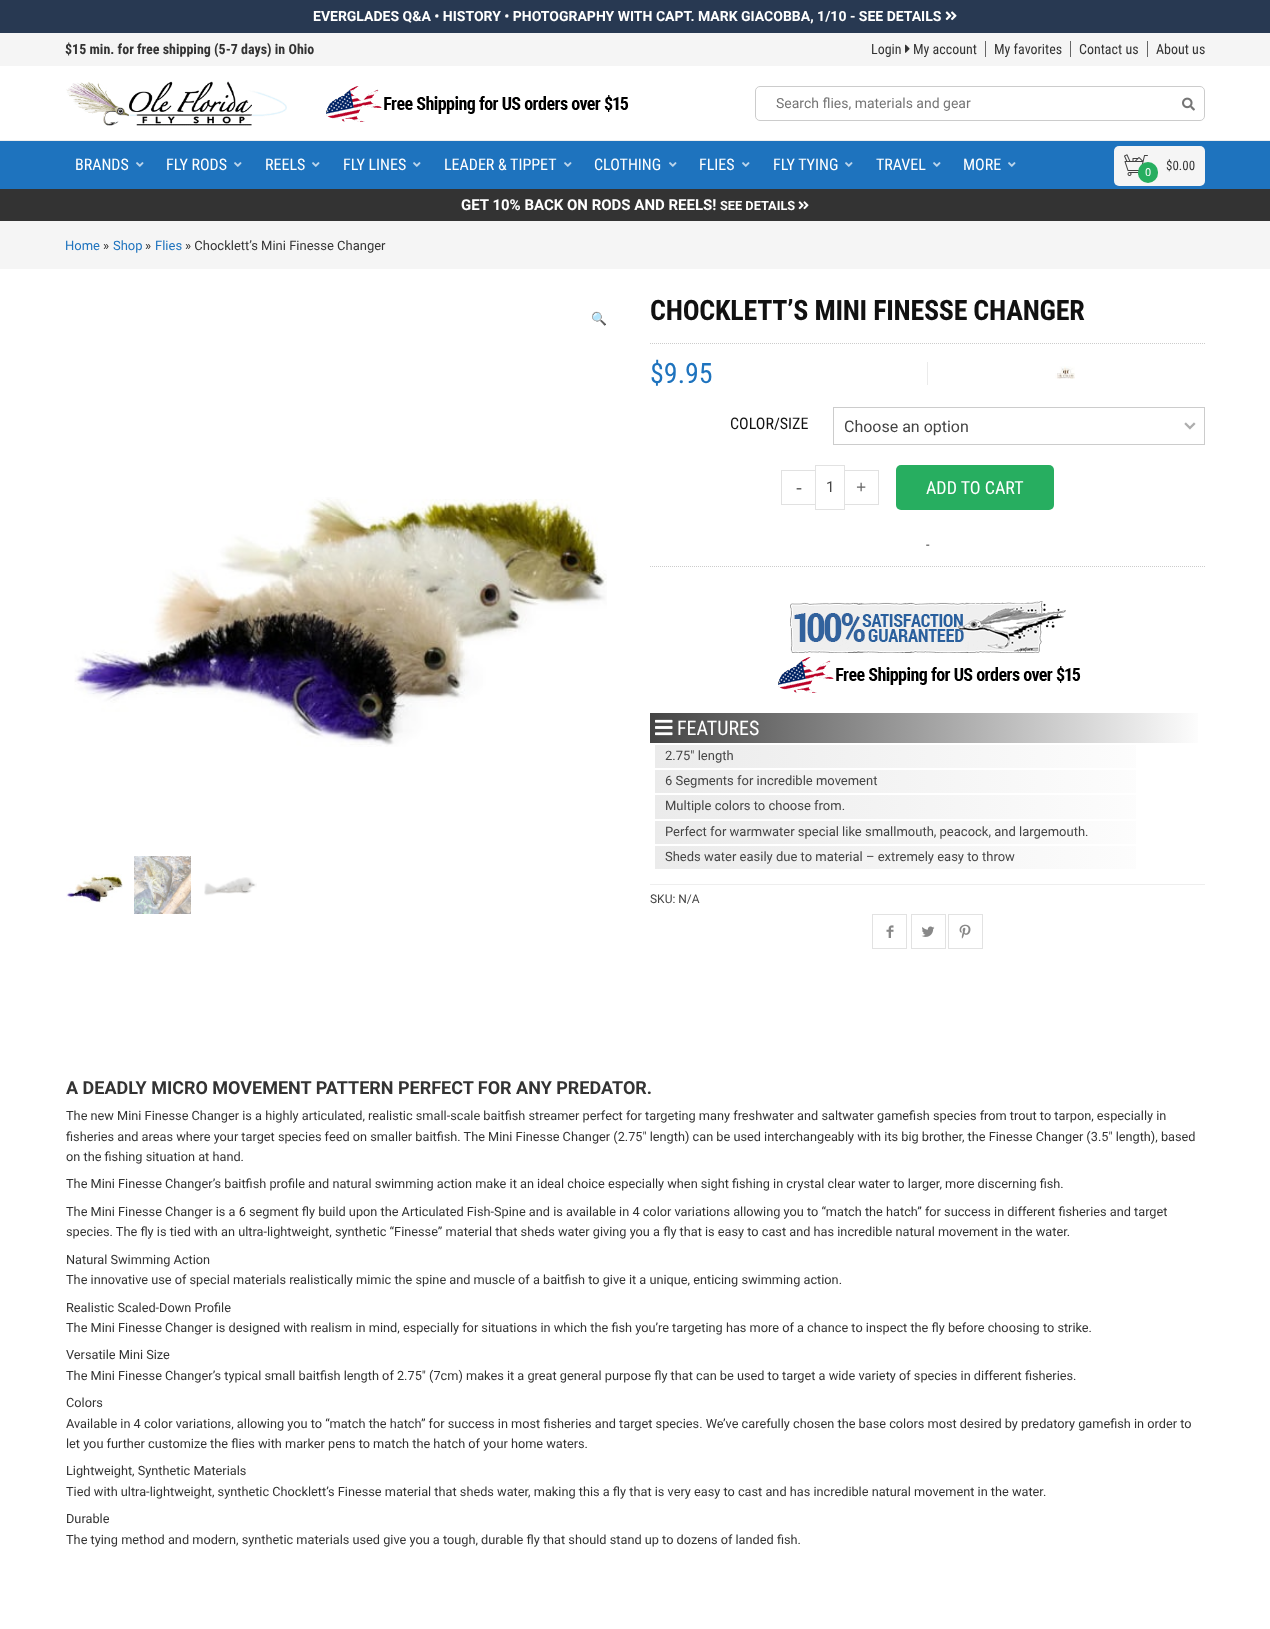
<svg xmlns="http://www.w3.org/2000/svg" width="1270" height="1629" viewBox="0 0 1270 1629">
  <defs>
    <linearGradient id="g1" gradientUnits="userSpaceOnUse" x1="650" y1="728" x2="1205" y2="728"><stop offset="0" stop-color="#444444"/><stop offset="0.5" stop-color="#a2a2a2"/><stop offset="1" stop-color="#ffffff"/></linearGradient>
    <linearGradient id="g2" gradientUnits="userSpaceOnUse" x1="655" y1="757" x2="1205" y2="757"><stop offset="0" stop-color="#ebebeb"/><stop offset="1" stop-color="#ffffff"/></linearGradient>
    <linearGradient id="g3" gradientUnits="userSpaceOnUse" x1="655" y1="782" x2="1205" y2="782"><stop offset="0" stop-color="#ebebeb"/><stop offset="1" stop-color="#ffffff"/></linearGradient>
    <linearGradient id="g4" gradientUnits="userSpaceOnUse" x1="655" y1="807" x2="1205" y2="807"><stop offset="0" stop-color="#ebebeb"/><stop offset="1" stop-color="#ffffff"/></linearGradient>
    <linearGradient id="g5" gradientUnits="userSpaceOnUse" x1="655" y1="833" x2="1205" y2="833"><stop offset="0" stop-color="#ebebeb"/><stop offset="1" stop-color="#ffffff"/></linearGradient>
    <linearGradient id="g6" gradientUnits="userSpaceOnUse" x1="655" y1="858" x2="1205" y2="858"><stop offset="0" stop-color="#ebebeb"/><stop offset="1" stop-color="#ffffff"/></linearGradient>
  </defs>
  <rect width="100%" height="100%" fill="#ffffff"/>
  <rect x="0" y="0" width="1270" height="33" fill="#283952"/>
  <text x="313" y="21" font-family="Roboto" font-size="14" font-weight="bold" fill="#ffffff">EVERGLADES Q&amp;A • HISTORY • PHOTOGRAPHY WITH CAPT. MARK GIACOBBA, 1/10 - SEE DETAILS</text>
  <image x="945" y="11" width="12" height="10" href="img1.png"/>
  <rect x="0" y="33" width="1270" height="33" fill="#f5f5f5"/>
  <text x="65" y="54" font-family="Roboto Condensed" font-size="14" font-weight="bold" fill="#333333">$15 min. for free shipping (5-7 days) in Ohio</text>
  <text x="871" y="54" font-family="Roboto Condensed" font-size="14" fill="#333333">Login</text>
  <image x="905" y="44" width="5" height="9" href="img2.png"/>
  <text x="913" y="54" font-family="Roboto Condensed" font-size="14" fill="#333333">My account</text>
  <text x="994" y="54" font-family="Roboto Condensed" font-size="14" fill="#333333">My favorites</text>
  <rect x="985" y="41" width="1" height="16" fill="#666666"/>
  <text x="1079" y="54" font-family="Roboto Condensed" font-size="14" fill="#333333">Contact us</text>
  <rect x="1070" y="41" width="1" height="16" fill="#666666"/>
  <text x="1156" y="54" font-family="Roboto Condensed" font-size="14" fill="#333333">About us</text>
  <rect x="1147" y="41" width="1" height="16" fill="#666666"/>
  <rect x="0" y="140" width="1270" height="1" fill="#eeeeee"/>
  <image x="66" y="81" width="221" height="45" href="img3.png"/>
  <image x="326" y="86" width="303" height="36" href="img4.png"/>
  <rect x="755.5" y="86.5" width="449" height="34" rx="4.5" fill="none" stroke="#cccccc"/>
  <text x="776" y="108" font-family="Roboto" font-size="14" fill="#757575">Search flies, materials and gear</text>
  <image x="1182" y="97" width="13" height="14" href="img5.png"/>
  <rect x="0" y="141" width="1270" height="48" fill="#1e73be"/>
  <text x="75" y="170" font-family="Roboto Condensed" font-size="16" fill="#ffffff">BRANDS</text>
  <image x="136" y="162" width="8" height="5" href="img6.png"/>
  <text x="166" y="170" font-family="Roboto Condensed" font-size="16" fill="#ffffff">FLY RODS</text>
  <image x="234" y="162" width="8" height="5" href="img6.png"/>
  <text x="265" y="170" font-family="Roboto Condensed" font-size="16" fill="#ffffff">REELS</text>
  <image x="312" y="162" width="8" height="5" href="img6.png"/>
  <text x="343" y="170" font-family="Roboto Condensed" font-size="16" fill="#ffffff">FLY LINES</text>
  <image x="413" y="162" width="8" height="5" href="img6.png"/>
  <text x="444" y="170" font-family="Roboto Condensed" font-size="16" fill="#ffffff">LEADER &amp; TIPPET</text>
  <image x="564" y="162" width="8" height="5" href="img6.png"/>
  <text x="594" y="170" font-family="Roboto Condensed" font-size="16" fill="#ffffff">CLOTHING</text>
  <image x="669" y="162" width="8" height="5" href="img6.png"/>
  <text x="699" y="170" font-family="Roboto Condensed" font-size="16" fill="#ffffff">FLIES</text>
  <image x="742" y="162" width="8" height="5" href="img6.png"/>
  <text x="773" y="170" font-family="Roboto Condensed" font-size="16" fill="#ffffff">FLY TYING</text>
  <image x="845" y="162" width="8" height="5" href="img6.png"/>
  <text x="876" y="170" font-family="Roboto Condensed" font-size="16" fill="#ffffff">TRAVEL</text>
  <image x="933" y="162" width="8" height="5" href="img6.png"/>
  <text x="963" y="170" font-family="Roboto Condensed" font-size="16" fill="#ffffff">MORE</text>
  <image x="1008" y="162" width="8" height="5" href="img6.png"/>
  <rect x="1114" y="146" width="91" height="40" rx="5" fill="#f5f5f5"/>
  <image x="1124" y="154" width="24" height="22" href="img7.png"/>
  <rect x="1138" y="162" width="20" height="21" rx="10" fill="#27ae60"/>
  <text x="1145" y="176" font-family="Roboto" font-size="11" fill="#ffffff">0</text>
  <text x="1166" y="170" font-family="Roboto Condensed" font-size="13" fill="#333333">$0.00</text>
  <rect x="0" y="189" width="1270" height="32" fill="#333333"/>
  <text x="461" y="210" font-family="Roboto" font-size="15" font-weight="bold" fill="#ffffff">GET 10% BACK ON RODS AND REELS!</text>
  <text x="720" y="210" font-family="Roboto" font-size="12.75" font-weight="bold" fill="#ffffff">SEE DETAILS</text>
  <image x="798" y="201" width="11" height="9" href="img8.png"/>
  <rect x="0" y="221" width="1270" height="48" fill="#f5f5f5"/>
  <text x="65" y="250" font-family="Roboto" font-size="13" fill="#1e73be">Home</text>
  <text x="103" y="250" font-family="Roboto" font-size="13" fill="#333333">»</text>
  <text x="113" y="250" font-family="Roboto" font-size="13" fill="#1e73be">Shop</text>
  <text x="145" y="250" font-family="Roboto" font-size="13" fill="#333333">»</text>
  <text x="155" y="250" font-family="Roboto" font-size="13" fill="#1e73be">Flies</text>
  <text x="185" y="250" font-family="Roboto" font-size="13" fill="#333333">» Chocklett’s Mini Finesse Changer</text>
  <text x="591" y="323" font-family="Noto Color Emoji" font-size="12.75" fill="#1e73be">🔍</text>
  <image x="74" y="497" width="533" height="250" href="img9.png"/>
  <image x="66" y="874" width="57" height="29" href="img10.png"/>
  <image x="134" y="856" width="57" height="58" href="img11.png"/>
  <image x="204" y="877" width="53" height="19" href="img12.png"/>
  <path d="M650 343.5H1205" fill="none" stroke="#cccccc" stroke-dasharray="1 1"/>
  <text x="650" y="320" font-family="Roboto Condensed" font-size="28" font-weight="bold" letter-spacing="-0.25" fill="#111111">CHOCKLETT’S MINI FINESSE CHANGER</text>
  <rect x="927" y="362" width="1" height="23" fill="#ebebeb"/>
  <text x="650" y="383" font-family="Roboto Condensed" font-size="28" fill="#1e73be">$9.95</text>
  <image x="1055" y="366" width="20" height="13" href="img13.png"/>
  <text x="730" y="429" font-family="Roboto Condensed" font-size="16" fill="#111111">COLOR/SIZE</text>
  <image x="1184" y="422" width="12" height="8" href="img14.png"/>
  <rect x="833.5" y="407.5" width="371" height="37" fill="none" stroke="#cccccc"/>
  <text x="844" y="432" font-family="Roboto" font-size="16" fill="#444444">Choose an option</text>
  <rect x="781.5" y="470.5" width="34" height="34" fill="none" stroke="#e1e1e1"/>
  <text x="796" y="493" font-family="Liberation Serif" font-size="18" font-weight="bold" fill="#666666">-</text>
  <rect x="844.5" y="470.5" width="34" height="34" fill="none" stroke="#e1e1e1"/>
  <rect x="815.5" y="465.5" width="29" height="44" fill="none" stroke="#e2e2e2"/>
  <text x="826" y="492" font-family="Roboto" font-size="15" fill="#444444">1</text>
  <text x="856" y="493" font-family="Liberation Serif" font-size="18" font-weight="bold" fill="#666666">+</text>
  <rect x="896" y="465" width="158" height="45" rx="5" fill="#27ae60"/>
  <text x="926" y="494" font-family="Roboto Condensed" font-size="18" fill="#ffffff">ADD TO CART</text>
  <path d="M650 566.5H1205" fill="none" stroke="#cccccc" stroke-dasharray="1 1"/>
  <text x="926" y="549" font-family="Roboto" font-size="12.75" fill="#333333">-</text>
  <image x="790" y="601" width="276" height="52" href="img15.png"/>
  <image x="778" y="657" width="303" height="36" href="img4.png"/>
  <rect x="650" y="713" width="548" height="30" fill="url(#g1)"/>
  <image x="655" y="719" width="18" height="17" href="img16.png"/>
  <text x="677" y="735" font-family="Roboto Condensed" font-size="20" fill="#ffffff">FEATURES</text>
  <rect x="655" y="745" width="481" height="23" fill="url(#g2)"/>
  <text x="665" y="760" font-family="Roboto" font-size="13" fill="#444444">2.75″ length</text>
  <rect x="655" y="770" width="481" height="23" fill="url(#g3)"/>
  <text x="665" y="785" font-family="Roboto" font-size="13" fill="#444444">6 Segments for incredible movement</text>
  <rect x="655" y="795" width="481" height="24" fill="url(#g4)"/>
  <text x="665" y="810" font-family="Roboto" font-size="13" fill="#444444">Multiple colors to choose from.</text>
  <rect x="655" y="821" width="481" height="23" fill="url(#g5)"/>
  <text x="665" y="836" font-family="Roboto" font-size="13" fill="#444444">Perfect for warmwater special like smallmouth, peacock, and largemouth.</text>
  <rect x="655" y="846" width="481" height="23" fill="url(#g6)"/>
  <text x="665" y="861" font-family="Roboto" font-size="13" fill="#444444">Sheds water easily due to material – extremely easy to throw</text>
  <rect x="650" y="884" width="555" height="1" fill="#eeeeee"/>
  <text x="650" y="903" font-family="Roboto" font-size="12" fill="#444444">SKU: N/A</text>
  <rect x="872.5" y="914.5" width="34" height="34" fill="none" stroke="#e2e2e2"/>
  <image x="886" y="925" width="8" height="13" href="img17.png"/>
  <rect x="911.5" y="914.5" width="34" height="34" fill="none" stroke="#e2e2e2"/>
  <image x="921" y="926" width="14" height="11" href="img18.png"/>
  <rect x="948.5" y="914.5" width="34" height="34" fill="none" stroke="#e2e2e2"/>
  <image x="959" y="924" width="12" height="15" href="img19.png"/>
  <text x="66" y="1094" font-family="Roboto" font-size="18" font-weight="bold" fill="#333333">A DEADLY MICRO MOVEMENT PATTERN PERFECT FOR ANY PREDATOR.</text>
  <text x="66" y="1120" font-family="Roboto" font-size="12.75" fill="#333333">The new Mini Finesse Changer is a highly articulated, realistic small-scale baitfish streamer perfect for targeting many freshwater and saltwater gamefish species from trout to tarpon, especially in</text>
  <text x="66" y="1141" font-family="Roboto" font-size="12.75" fill="#333333">fisheries and areas where your target species feed on smaller baitfish. The Mini Finesse Changer (2.75″ length) can be used interchangeably with its big brother, the Finesse Changer (3.5″ length), based</text>
  <text x="66" y="1161" font-family="Roboto" font-size="12.75" fill="#333333">on the fishing situation at hand.</text>
  <text x="66" y="1188" font-family="Roboto" font-size="12.75" fill="#333333">The Mini Finesse Changer’s baitfish profile and natural swimming action make it an ideal choice especially when sight fishing in crystal clear water to larger, more discerning fish.</text>
  <text x="66" y="1216" font-family="Roboto" font-size="12.75" fill="#333333">The Mini Finesse Changer is a 6 segment fly build upon the Articulated Fish-Spine and is available in 4 color variations allowing you to “match the hatch” for success in different fisheries and target</text>
  <text x="66" y="1236" font-family="Roboto" font-size="12.75" fill="#333333">species. The fly is tied with an ultra-lightweight, synthetic “Finesse” material that sheds water giving you a fly that is easy to cast and has incredible natural movement in the water.</text>
  <text x="66" y="1264" font-family="Roboto" font-size="12.75" fill="#333333">Natural Swimming Action</text>
  <text x="66" y="1284" font-family="Roboto" font-size="12.75" fill="#333333">The innovative use of special materials realistically mimic the spine and muscle of a baitfish to give it a unique, enticing swimming action.</text>
  <text x="66" y="1312" font-family="Roboto" font-size="12.75" fill="#333333">Realistic Scaled-Down Profile</text>
  <text x="66" y="1332" font-family="Roboto" font-size="12.75" fill="#333333">The Mini Finesse Changer is designed with realism in mind, especially for situations in which the fish you’re targeting has more of a chance to inspect the fly before choosing to strike.</text>
  <text x="66" y="1359" font-family="Roboto" font-size="12.75" fill="#333333">Versatile Mini Size</text>
  <text x="66" y="1380" font-family="Roboto" font-size="12.75" fill="#333333">The Mini Finesse Changer’s typical small baitfish length of 2.75″ (7cm) makes it a great general purpose fly that can be used to target a wide variety of species in different fisheries.</text>
  <text x="66" y="1407" font-family="Roboto" font-size="12.75" fill="#333333">Colors</text>
  <text x="66" y="1428" font-family="Roboto" font-size="12.75" fill="#333333">Available in 4 color variations, allowing you to “match the hatch” for success in most fisheries and target species. We’ve carefully chosen the base colors most desired by predatory gamefish in order to</text>
  <text x="66" y="1448" font-family="Roboto" font-size="12.75" fill="#333333">let you further customize the flies with marker pens to match the hatch of your home waters.</text>
  <text x="66" y="1475" font-family="Roboto" font-size="12.75" fill="#333333">Lightweight, Synthetic Materials</text>
  <text x="66" y="1496" font-family="Roboto" font-size="12.75" fill="#333333">Tied with ultra-lightweight, synthetic Chocklett’s Finesse material that sheds water, making this a fly that is very easy to cast and has incredible natural movement in the water.</text>
  <text x="66" y="1523" font-family="Roboto" font-size="12.75" fill="#333333">Durable</text>
  <text x="66" y="1544" font-family="Roboto" font-size="12.75" fill="#333333">The tying method and modern, synthetic materials used give you a tough, durable fly that should stand up to dozens of landed fish.</text>
</svg>
